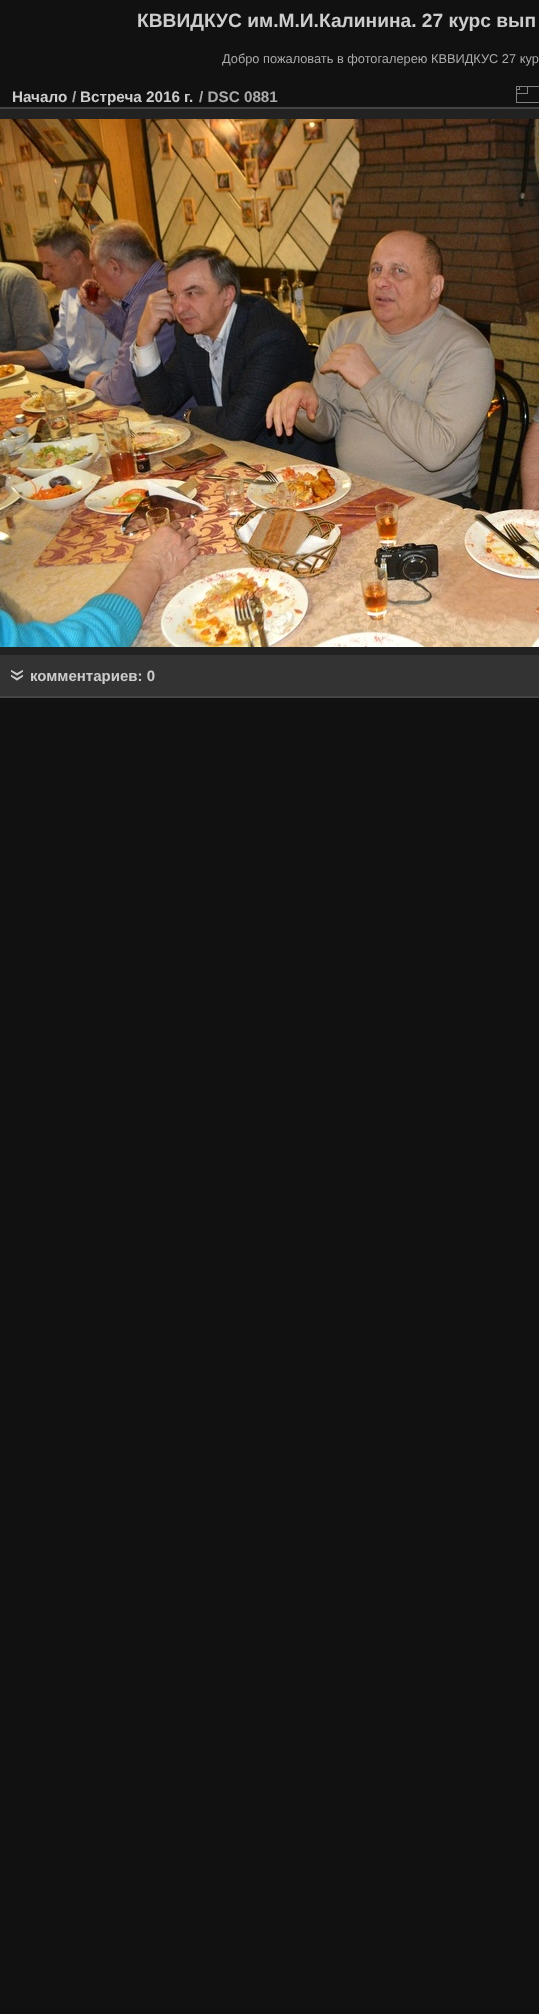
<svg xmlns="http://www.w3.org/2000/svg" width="539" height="2014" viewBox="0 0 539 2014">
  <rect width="100%" height="100%" fill="#111111"/>
  <text x="137" y="27" font-family="Liberation Sans" font-size="19.2" font-weight="bold" fill="#cccccc">КВВИДКУС им.М.И.Калинина. 27 курс вып</text>
  <text x="222" y="63" font-family="Liberation Sans" font-size="12.8" fill="#aaaaaa">Добро пожаловать в фотогалерею КВВИДКУС 27 кур</text>
  <rect x="0" y="109" width="539" height="546" fill="#222222"/>
  <rect x="0" y="696" width="539" height="2" fill="#444444"/>
  <rect x="0" y="107" width="539" height="2" fill="#444444"/>
  <text x="12" y="102" font-family="Liberation Sans" font-size="15.25" font-weight="bold" fill="#cccccc">Начало</text>
  <text x="72" y="102" font-family="Liberation Sans" font-size="15.25" font-weight="bold" fill="#aaaaaa">/</text>
  <text x="80" y="102" font-family="Liberation Sans" font-size="15.25" font-weight="bold" fill="#cccccc">Встреча 2016 г.</text>
  <text x="199" y="102" font-family="Liberation Sans" font-size="15.25" font-weight="bold" fill="#aaaaaa">/ DSC 0881</text>
  <image x="516" y="86" width="23" height="17" href="img1.png"/>
  <image x="0" y="119" width="539" height="528" href="img2.png"/>
  <rect x="0" y="655" width="539" height="41" fill="#333333"/>
  <image x="11" y="669" width="12" height="12" href="img3.png"/>
  <text x="30" y="681" font-family="Liberation Sans" font-size="15" font-weight="bold" fill="#cccccc">комментариев: 0</text>
</svg>
